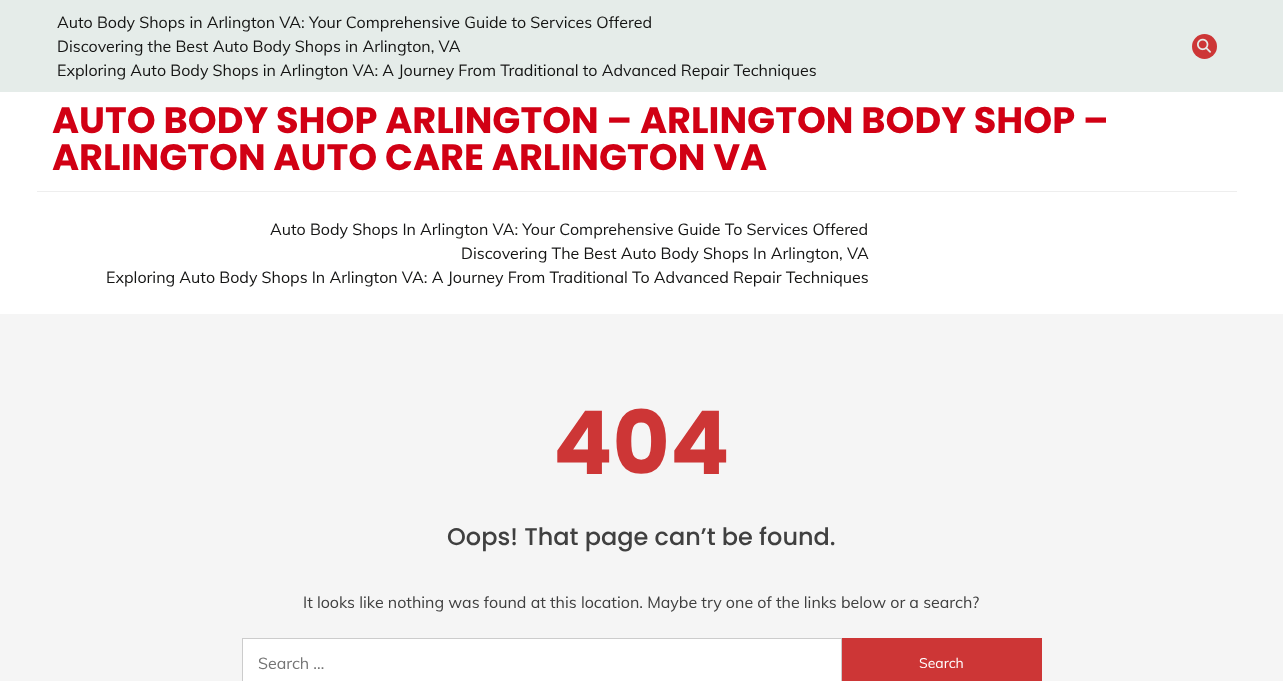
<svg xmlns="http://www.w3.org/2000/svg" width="1283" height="681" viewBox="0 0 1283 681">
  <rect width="100%" height="100%" fill="#f5f5f5"/>
  <rect x="0" y="92" width="1283" height="222" fill="#ffffff"/>
  <rect x="0" y="0" width="1283" height="92" fill="#e5ece9"/>
  <text x="57" y="28" font-family="Muli" font-size="16" fill="#141413">Auto Body Shops in Arlington VA: Your Comprehensive Guide to Services Offered</text>
  <text x="57" y="52" font-family="Muli" font-size="16" fill="#141413">Discovering the Best Auto Body Shops in Arlington, VA</text>
  <text x="57" y="76" font-family="Muli" font-size="16" fill="#141413">Exploring Auto Body Shops in Arlington VA: A Journey From Traditional to Advanced Repair Techniques</text>
  <circle cx="1204.5" cy="46.5" r="12.5" fill="#cd3636"/>
  <image x="1197" y="38" width="14" height="15" href="img1.png"/>
  <rect x="37" y="191" width="1200" height="1" fill="#eeeeee"/>
  <text x="52" y="133" font-family="Poppins" font-size="36.8" font-weight="bold" fill="#d10014">AUTO BODY SHOP ARLINGTON – ARLINGTON BODY SHOP –</text>
  <text x="52" y="170" font-family="Poppins" font-size="36.8" font-weight="bold" fill="#d10014">ARLINGTON AUTO CARE ARLINGTON VA</text>
  <text x="270" y="235" font-family="Muli" font-size="16" fill="#141413">Auto Body Shops In Arlington VA: Your Comprehensive Guide To Services Offered</text>
  <text x="461" y="259" font-family="Muli" font-size="16" fill="#141413">Discovering The Best Auto Body Shops In Arlington, VA</text>
  <text x="106" y="283" font-family="Muli" font-size="16" fill="#141413">Exploring Auto Body Shops In Arlington VA: A Journey From Traditional To Advanced Repair Techniques</text>
  <text x="553" y="474" font-family="Poppins" font-size="88" font-weight="bold" fill="#cd3636">404</text>
  <text x="447" y="545" font-family="Poppins" font-size="24" font-weight="500" fill="#404040">Oops! That page can’t be found.</text>
  <text x="303" y="608" font-family="Muli" font-size="16" fill="#404040">It looks like nothing was found at this location. Maybe try one of the links below or a search?</text>
  <rect x="242.5" y="638.5" width="599" height="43" fill="#ffffff" stroke="#cccccc"/>
  <text x="258" y="669" font-family="Muli" font-size="16" fill="#757575">Search …</text>
  <rect x="842" y="638" width="200" height="43" fill="#cd3636"/>
  <text x="919" y="668" font-family="Muli" font-size="14" fill="#ffffff">Search</text>
</svg>
